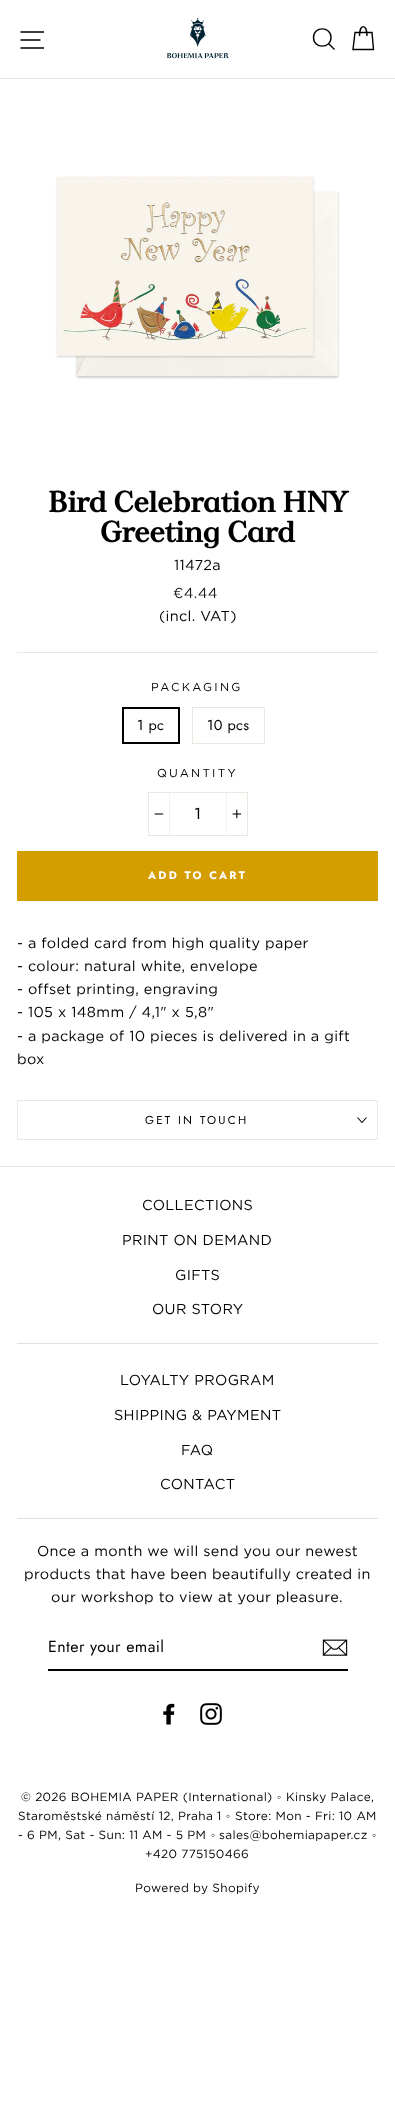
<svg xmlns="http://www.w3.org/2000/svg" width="395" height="2126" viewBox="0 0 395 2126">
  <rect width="100%" height="100%" fill="#ffffff"/>
  <rect x="0" y="78" width="395" height="1" fill="#e8e8e1"/>
  <path d="M20.5 32H44M20.5 40H40.5M20.5 48H44" fill="none" stroke="#000000" stroke-width="1.4"/>
  <image x="166" y="18" width="63" height="41" href="img1.png"/>
  <path d="M331 37.5C331 49 313.5 49 313.5 37.5C313.5 26 331 26 331 37.5ZM334.5 49.5L328.5 43.5M359.5 36C359.5 23.5 367 23.5 367 36M355 32.5H372L373.5 49.5H353Z" fill="none" stroke="#000000" stroke-width="1.4"/>
  <image x="55" y="176" width="285" height="204" href="img2.png"/>
  <text x="48" y="512" font-family="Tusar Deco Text" font-size="29.25" font-weight="bold" fill="#000000">Bird Celebration HNY</text>
  <text x="100" y="542" font-family="Tusar Deco Text" font-size="29.25" font-weight="bold" fill="#000000">Greeting Card</text>
  <text x="174" y="570" font-family="Gotham" font-size="14.45" letter-spacing="0.35" fill="#000000">11472a</text>
  <text x="173" y="598" font-family="Gotham" font-size="14.45" letter-spacing="0.35" fill="#1c1d1d">€4.44</text>
  <text x="159" y="621" font-family="Gotham" font-size="14.45" letter-spacing="0.35" fill="#000000">(incl. VAT)</text>
  <rect x="17" y="652" width="361" height="1" fill="#e8e8e1"/>
  <text x="151" y="691" font-family="Gotham" font-size="11.5" letter-spacing="2.25" fill="#000000">PACKAGING</text>
  <rect x="123" y="708" width="56" height="35" fill="none" stroke="#000000" stroke-width="2"/>
  <text x="137" y="730" font-family="Jost" font-size="14.45" letter-spacing="0.35" fill="#000000">1 pc</text>
  <rect x="192.5" y="707.5" width="72" height="36" fill="none" stroke="#e8e8e1"/>
  <text x="207" y="730" font-family="Jost" font-size="14.45" letter-spacing="0.35" fill="#000000">10 pcs</text>
  <text x="157" y="777" font-family="Gotham" font-size="11.5" letter-spacing="2.25" fill="#000000">QUANTITY</text>
  <rect x="148.5" y="792.5" width="99" height="43" fill="none" stroke="#e8e8e1"/>
  <rect x="169" y="793" width="1" height="42" fill="#f2f2f2"/>
  <image x="154" y="813" width="10" height="2" href="img3.png"/>
  <text x="194" y="819" font-family="Jost" font-size="16" letter-spacing="0.4" fill="#000000">1</text>
  <rect x="226" y="793" width="1" height="42" fill="#f2f2f2"/>
  <image x="232" y="809" width="10" height="10" href="img4.png"/>
  <rect x="17" y="851" width="361" height="50" fill="#d49d00"/>
  <text x="148" y="879" font-family="Jost" font-size="11" font-weight="bold" letter-spacing="2.25" fill="#ffffff">ADD TO CART</text>
  <text x="17" y="948" font-family="Gotham" font-size="14.45" letter-spacing="0.35" fill="#000000">- a folded card from high quality paper</text>
  <text x="17" y="971" font-family="Gotham" font-size="14.45" letter-spacing="0.35" fill="#000000">- colour: natural white, envelope</text>
  <text x="17" y="994" font-family="Gotham" font-size="14.45" letter-spacing="0.35" fill="#000000">- offset printing, engraving</text>
  <text x="17" y="1017" font-family="Gotham" font-size="14.45" letter-spacing="0.35" fill="#000000">- 105 x 148mm / 4,1" x 5,8"</text>
  <text x="17" y="1041" font-family="Gotham" font-size="14.45" letter-spacing="0.35" fill="#000000">- a package of 10 pieces is delivered in a gift</text>
  <text x="17" y="1064" font-family="Gotham" font-size="14.45" letter-spacing="0.35" fill="#000000">box</text>
  <rect x="17" y="1139" width="361" height="1" fill="#e8e8e1"/>
  <rect x="17" y="1100" width="361" height="1" fill="#e8e8e1"/>
  <rect x="377" y="1100" width="1" height="39" fill="#e8e8e1"/>
  <rect x="17" y="1100" width="1" height="39" fill="#e8e8e1"/>
  <text x="145" y="1124" font-family="Jost" font-size="11.5" letter-spacing="2.25" fill="#000000">GET IN TOUCH</text>
  <path d="M357.5 1117.5L362 1122.5L366.5 1117.5" fill="none" stroke="#000000" stroke-width="1.1"/>
  <rect x="0" y="1166" width="395" height="1" fill="#e8e8e1"/>
  <text x="142" y="1210" font-family="Gotham" font-size="14.45" letter-spacing="0.35" fill="#000000">COLLECTIONS</text>
  <text x="122" y="1245" font-family="Gotham" font-size="14.45" letter-spacing="0.35" fill="#000000">PRINT ON DEMAND</text>
  <text x="175" y="1280" font-family="Gotham" font-size="14.45" letter-spacing="0.35" fill="#000000">GIFTS</text>
  <text x="152" y="1314" font-family="Gotham" font-size="14.45" letter-spacing="0.35" fill="#000000">OUR STORY</text>
  <rect x="17" y="1343" width="361" height="1" fill="#e0e0e0"/>
  <text x="120" y="1385" font-family="Gotham" font-size="14.45" letter-spacing="0.35" fill="#000000">LOYALTY PROGRAM</text>
  <text x="114" y="1420" font-family="Gotham" font-size="14.45" letter-spacing="0.35" fill="#000000">SHIPPING &amp; PAYMENT</text>
  <text x="181" y="1455" font-family="Gotham" font-size="14.45" letter-spacing="0.35" fill="#000000">FAQ</text>
  <text x="160" y="1489" font-family="Gotham" font-size="14.45" letter-spacing="0.35" fill="#000000">CONTACT</text>
  <rect x="17" y="1518" width="361" height="1" fill="#e0e0e0"/>
  <text x="37" y="1556" font-family="Gotham" font-size="14.45" letter-spacing="0.35" fill="#000000">Once a month we will send you our newest</text>
  <text x="24" y="1579" font-family="Gotham" font-size="14.45" letter-spacing="0.35" fill="#000000">products that have been beautifully created in</text>
  <text x="51" y="1602" font-family="Gotham" font-size="14.45" letter-spacing="0.35" fill="#000000">our workshop to view at your pleasure.</text>
  <rect x="48" y="1669" width="300" height="2" fill="#000000"/>
  <text x="48" y="1652" font-family="Jost" font-size="16" letter-spacing="0.4" fill="#000000">Enter your email</text>
  <image x="322" y="1639" width="26" height="17" href="img5.png"/>
  <image x="163" y="1703" width="12" height="22" href="img6.png"/>
  <image x="200" y="1703" width="22" height="22" href="img7.png"/>
  <text x="21" y="1801" font-family="Gotham" font-size="11.9" letter-spacing="0.35" fill="#000000">© 2026 BOHEMIA PAPER (International)</text>
  <text x="277" y="1801" font-family="Liberation Sans" font-size="11.9" letter-spacing="0.35" fill="#000000">◦</text>
  <text x="286" y="1801" font-family="Gotham" font-size="11.9" letter-spacing="0.35" fill="#000000">Kinsky Palace,</text>
  <text x="18" y="1820" font-family="Gotham" font-size="11.9" letter-spacing="0.35" fill="#000000">Staroměstské náměstí 12, Praha 1</text>
  <text x="226" y="1820" font-family="Liberation Sans" font-size="11.9" letter-spacing="0.35" fill="#000000">◦</text>
  <text x="235" y="1820" font-family="Gotham" font-size="11.9" letter-spacing="0.35" fill="#000000">Store: Mon - Fri: 10 AM</text>
  <text x="18" y="1839" font-family="Gotham" font-size="11.9" letter-spacing="0.35" fill="#000000">- 6 PM, Sat - Sun: 11 AM - 5 PM</text>
  <text x="211" y="1839" font-family="Liberation Sans" font-size="11.9" letter-spacing="0.35" fill="#000000">◦</text>
  <text x="219" y="1839" font-family="Gotham" font-size="11.9" letter-spacing="0.35" fill="#000000">sales@bohemiapaper.cz</text>
  <text x="372" y="1839" font-family="Liberation Sans" font-size="11.9" letter-spacing="0.35" fill="#000000">◦</text>
  <text x="145" y="1858" font-family="Gotham" font-size="11.9" letter-spacing="0.35" fill="#000000">+420 775150466</text>
  <text x="135" y="1892" font-family="Gotham" font-size="11.9" letter-spacing="0.35" fill="#000000">Powered by Shopify</text>
</svg>
